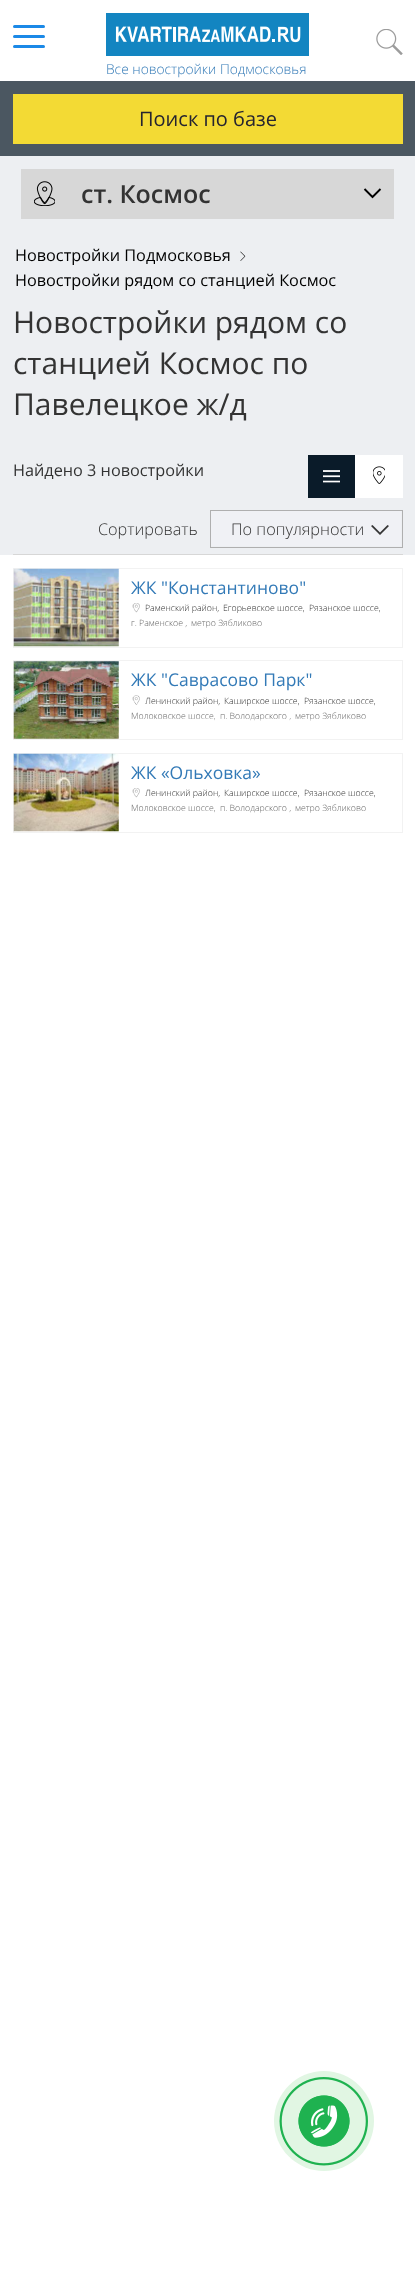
<svg xmlns="http://www.w3.org/2000/svg" width="415" height="2296" viewBox="0 0 415 2296">
  <defs>
    <linearGradient id="g1" gradientUnits="userSpaceOnUse" x1="260" y1="619" x2="260" y2="629"><stop offset="0.7" stop-color="#ffffff" stop-opacity="0.24"/><stop offset="1" stop-color="#ffffff" stop-opacity="0.78"/></linearGradient>
    <linearGradient id="g2" gradientUnits="userSpaceOnUse" x1="260" y1="711" x2="260" y2="721"><stop offset="0.7" stop-color="#ffffff" stop-opacity="0.24"/><stop offset="1" stop-color="#ffffff" stop-opacity="0.78"/></linearGradient>
    <linearGradient id="g3" gradientUnits="userSpaceOnUse" x1="260" y1="804" x2="260" y2="814"><stop offset="0.7" stop-color="#ffffff" stop-opacity="0.24"/><stop offset="1" stop-color="#ffffff" stop-opacity="0.78"/></linearGradient>
  </defs>
  <rect width="100%" height="100%" fill="#ffffff"/>
  <rect x="13" y="25" width="32" height="3" rx="1.5" fill="#1b89e7"/>
  <rect x="13" y="35" width="32" height="3" rx="1.5" fill="#1b89e7"/>
  <rect x="13" y="45" width="32" height="3" rx="1.5" fill="#1b89e7"/>
  <image x="376" y="29" width="27" height="26" href="img1.png"/>
  <image x="106" y="13" width="203" height="43" href="img2.png"/>
  <text x="106" y="74" font-family="Open Sans" font-size="13.75" font-weight="300" fill="#337ab7">Все новостройки Подмосковья</text>
  <rect x="0" y="81" width="415" height="75" fill="#4b5761"/>
  <rect x="13" y="94" width="390" height="50" fill="#f3da34"/>
  <text x="139" y="126" font-family="Open Sans" font-size="20" fill="#252430">Поиск по базе</text>
  <rect x="0" y="156" width="415" height="399" fill="#edeff2"/>
  <rect x="21" y="169" width="373" height="50" fill="#d7d7d7"/>
  <image x="34" y="181" width="21" height="25" href="img3.png"/>
  <text x="81" y="203" font-family="Open Sans" font-size="25" font-weight="600" fill="#333333">ст. Космос</text>
  <path d="M372 197.5L380.5 189M373 197.5L364.5 189" fill="none" stroke="#000000" stroke-width="1.9"/>
  <text x="15" y="261" font-family="Open Sans" font-size="16.25" fill="#000000">Новостройки Подмосковья</text>
  <image x="240" y="251" width="6" height="10" href="img4.png"/>
  <text x="15" y="286" font-family="Open Sans" font-size="16.25" fill="#000000">Новостройки рядом со станцией Космос</text>
  <text x="13" y="333" font-family="Open Sans" font-size="30" fill="#333333">Новостройки рядом со</text>
  <text x="13" y="374" font-family="Open Sans" font-size="30" fill="#333333">станцией Космос по</text>
  <text x="13" y="415" font-family="Open Sans" font-size="30" fill="#333333">Павелецкое ж/д</text>
  <rect x="13" y="554" width="390" height="1" fill="#d7d7d7"/>
  <text x="13" y="476" font-family="Open Sans" font-size="16.25" fill="#333333">Найдено 3 новостройки</text>
  <rect x="308" y="455" width="47" height="43" fill="#0a1b29"/>
  <image x="323" y="470" width="17" height="13" href="img5.png"/>
  <rect x="355" y="455" width="48" height="43" fill="#ffffff"/>
  <image x="373" y="466" width="12" height="18" href="img6.png"/>
  <text x="98" y="535" font-family="Open Sans" font-size="16.25" font-weight="300" fill="#333333">Сортировать</text>
  <rect x="210.5" y="510.5" width="192" height="37" fill="none" stroke="#afafaf"/>
  <rect x="211" y="511" width="190" height="35" fill="#f0f1f5"/>
  <text x="231" y="535" font-family="Open Sans" font-size="16.25" font-weight="300" fill="#333333">По популярности</text>
  <path d="M387.5 525L380 532.5L372.5 525L371 526L380 535L389 526Z" fill="#363636" fill-rule="evenodd"/>
  <rect x="13.5" y="568.5" width="389" height="79" fill="none" stroke="#f2f2f2"/>
  <image x="13" y="568" width="106" height="79" href="img7.png"/>
  <text x="131" y="594" font-family="Open Sans" font-size="17.5" fill="#337ab7">ЖК "Константиново"</text>
  <image x="132" y="603" width="8" height="10" href="img8.png"/>
  <text x="145" y="611" font-family="Open Sans" font-size="8.75" font-weight="300" fill="#333333">Раменский район,</text>
  <text x="223" y="611" font-family="Open Sans" font-size="8.75" font-weight="300" fill="#333333">Егорьевское шоссе,</text>
  <text x="309" y="611" font-family="Open Sans" font-size="8.75" font-weight="300" fill="#333333">Рязанское шоссе,</text>
  <text x="131" y="626" font-family="Open Sans" font-size="8.75" font-weight="300" fill="#333333">г. Раменское ,</text>
  <text x="191" y="626" font-family="Open Sans" font-size="8.75" font-weight="300" fill="#333333">метро Зябликово</text>
  <rect x="132" y="619" width="130" height="10" fill="url(#g1)"/>
  <rect x="13.5" y="660.5" width="389" height="79" fill="none" stroke="#f2f2f2"/>
  <image x="13" y="661" width="106" height="78" href="img9.png"/>
  <text x="131" y="686" font-family="Open Sans" font-size="17.5" fill="#337ab7">ЖК "Саврасово Парк"</text>
  <image x="132" y="695" width="8" height="10" href="img10.png"/>
  <text x="145" y="704" font-family="Open Sans" font-size="8.75" font-weight="300" fill="#333333">Ленинский район,</text>
  <text x="224" y="704" font-family="Open Sans" font-size="8.75" font-weight="300" fill="#333333">Каширское шоссе,</text>
  <text x="304" y="704" font-family="Open Sans" font-size="8.75" font-weight="300" fill="#333333">Рязанское шоссе,</text>
  <text x="131" y="719" font-family="Open Sans" font-size="8.75" font-weight="300" fill="#333333">Молоковское шоссе,</text>
  <text x="220" y="719" font-family="Open Sans" font-size="8.75" font-weight="300" fill="#333333">п. Володарского ,</text>
  <text x="295" y="719" font-family="Open Sans" font-size="8.75" font-weight="300" fill="#333333">метро Зябликово</text>
  <rect x="132" y="712" width="234" height="9" fill="url(#g2)"/>
  <rect x="13.5" y="753.5" width="389" height="79" fill="none" stroke="#f2f2f2"/>
  <image x="13" y="753" width="106" height="79" href="img11.png"/>
  <text x="131" y="779" font-family="Open Sans" font-size="17.5" fill="#337ab7">ЖК «Ольховка»</text>
  <image x="132" y="788" width="8" height="10" href="img8.png"/>
  <text x="145" y="796" font-family="Open Sans" font-size="8.75" font-weight="300" fill="#333333">Ленинский район,</text>
  <text x="224" y="796" font-family="Open Sans" font-size="8.75" font-weight="300" fill="#333333">Каширское шоссе,</text>
  <text x="304" y="796" font-family="Open Sans" font-size="8.75" font-weight="300" fill="#333333">Рязанское шоссе,</text>
  <text x="131" y="811" font-family="Open Sans" font-size="8.75" font-weight="300" fill="#333333">Молоковское шоссе,</text>
  <text x="220" y="811" font-family="Open Sans" font-size="8.75" font-weight="300" fill="#333333">п. Володарского ,</text>
  <text x="295" y="811" font-family="Open Sans" font-size="8.75" font-weight="300" fill="#333333">метро Зябликово</text>
  <rect x="132" y="804" width="234" height="10" fill="url(#g3)"/>
  <circle cx="324" cy="2121" r="50" fill="#e1f6e3"/>
  <image x="279" y="2077" width="89" height="89" href="img12.png"/>
</svg>
